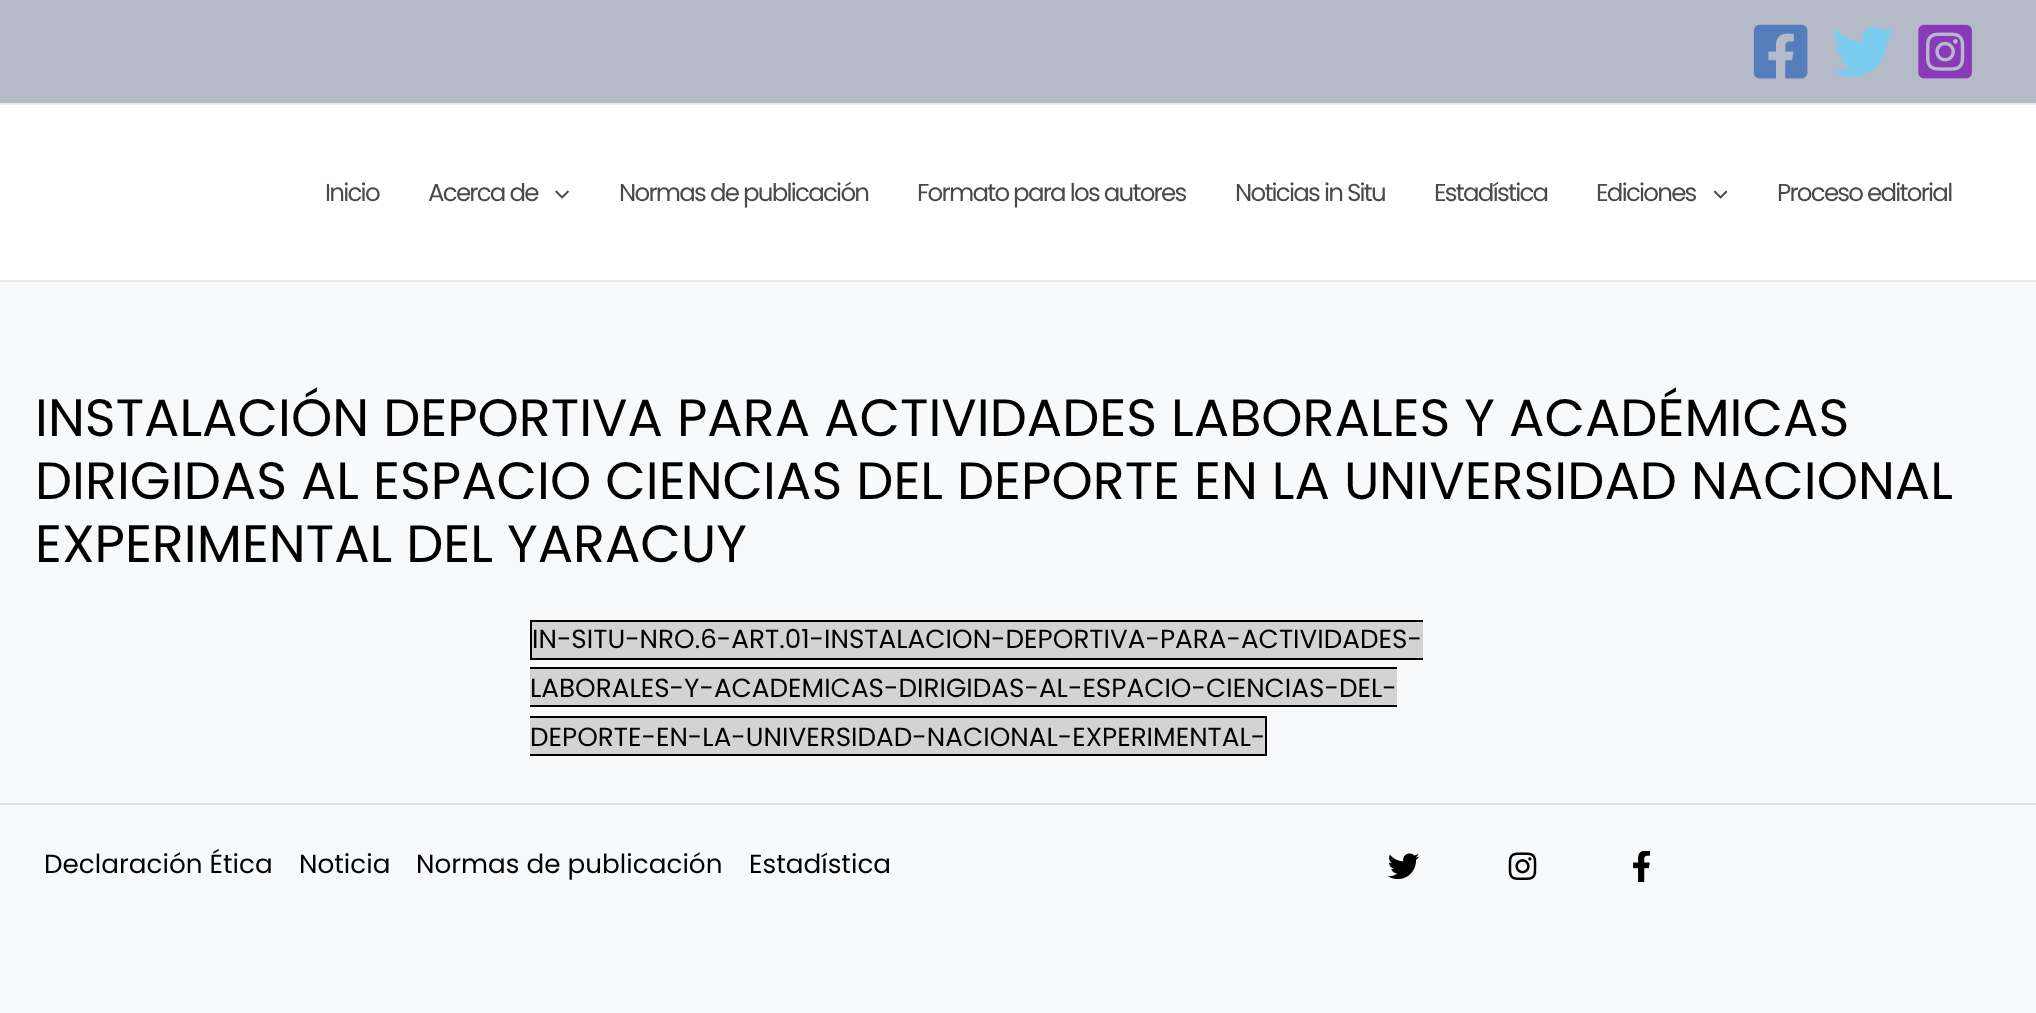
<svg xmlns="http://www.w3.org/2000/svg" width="2036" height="1013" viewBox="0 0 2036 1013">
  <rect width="100%" height="100%" fill="#f7f9fb"/>
  <rect x="0" y="0" width="2036" height="103" fill="#b5bac9"/>
  <rect x="0" y="103" width="2036" height="2" fill="#eaeaea"/>
  <image x="1753" y="24" width="55" height="55" href="img1.png"/>
  <image x="1832" y="26" width="62" height="51" href="img2.png"/>
  <image x="1918" y="24" width="54" height="55" href="img3.png"/>
  <rect x="0" y="105" width="2036" height="175" fill="#ffffff"/>
  <rect x="0" y="280" width="2036" height="2" fill="#eaeaea"/>
  <text x="325" y="201" font-family="Poppins" font-size="24.5" letter-spacing="-1.75" fill="#4a4a4a">Inicio</text>
  <text x="428" y="201" font-family="Poppins" font-size="24.5" letter-spacing="-1.75" fill="#4a4a4a">Acerca de</text>
  <image x="555" y="190" width="15" height="9" href="img4.png"/>
  <text x="619" y="201" font-family="Poppins" font-size="24.5" letter-spacing="-1.75" fill="#4a4a4a">Normas de publicación</text>
  <text x="917" y="201" font-family="Poppins" font-size="24.5" letter-spacing="-1.75" fill="#4a4a4a">Formato para los autores</text>
  <text x="1235" y="201" font-family="Poppins" font-size="24.5" letter-spacing="-1.75" fill="#4a4a4a">Noticias in Situ</text>
  <text x="1434" y="201" font-family="Poppins" font-size="24.5" letter-spacing="-1.75" fill="#4a4a4a">Estadística</text>
  <text x="1596" y="201" font-family="Poppins" font-size="24.5" letter-spacing="-1.75" fill="#4a4a4a">Ediciones</text>
  <image x="1713" y="190" width="14" height="9" href="img5.png"/>
  <text x="1777" y="201" font-family="Poppins" font-size="24.5" letter-spacing="-1.75" fill="#4a4a4a">Proceso editorial</text>
  <text x="35" y="436" font-family="Poppins" font-size="52.5" fill="#000000">INSTALACIÓN DEPORTIVA PARA ACTIVIDADES LABORALES Y ACADÉMICAS</text>
  <text x="35" y="499" font-family="Poppins" font-size="52.5" fill="#000000">DIRIGIDAS AL ESPACIO CIENCIAS DEL DEPORTE EN LA UNIVERSIDAD NACIONAL</text>
  <text x="35" y="562" font-family="Poppins" font-size="52.5" fill="#000000">EXPERIMENTAL DEL YARACUY</text>
  <rect x="532" y="622" width="891" height="36" fill="#d3d3d3"/>
  <text x="532" y="648" font-family="Poppins" font-size="26.25" fill="#000000">IN-SITU-NRO.6-ART.01-INSTALACION-DEPORTIVA-PARA-ACTIVIDADES-</text>
  <rect x="530" y="620" width="893" height="2" fill="#000000"/>
  <rect x="530" y="658" width="893" height="2" fill="#000000"/>
  <rect x="530" y="620" width="2" height="40" fill="#000000"/>
  <rect x="530" y="669" width="867" height="36" fill="#d3d3d3"/>
  <text x="530" y="697" font-family="Poppins" font-size="26.25" fill="#000000">LABORALES-Y-ACADEMICAS-DIRIGIDAS-AL-ESPACIO-CIENCIAS-DEL-</text>
  <rect x="530" y="667" width="867" height="2" fill="#000000"/>
  <rect x="530" y="705" width="867" height="2" fill="#000000"/>
  <rect x="530" y="718" width="735" height="36" fill="#d3d3d3"/>
  <text x="530" y="746" font-family="Poppins" font-size="26.25" fill="#000000">DEPORTE-EN-LA-UNIVERSIDAD-NACIONAL-EXPERIMENTAL-</text>
  <rect x="530" y="716" width="737" height="2" fill="#000000"/>
  <rect x="1265" y="716" width="2" height="40" fill="#000000"/>
  <rect x="530" y="754" width="737" height="2" fill="#000000"/>
  <rect x="0" y="803" width="2036" height="2" fill="#dee0e2"/>
  <text x="44" y="873" font-family="Poppins" font-size="26.25" fill="#000000">Declaración Ética</text>
  <text x="299" y="873" font-family="Poppins" font-size="26.25" fill="#000000">Noticia</text>
  <text x="416" y="873" font-family="Poppins" font-size="26.25" fill="#000000">Normas de publicación</text>
  <text x="749" y="873" font-family="Poppins" font-size="26.25" fill="#000000">Estadística</text>
  <image x="1388" y="853" width="31" height="26" href="img6.png"/>
  <image x="1508" y="852" width="29" height="28" href="img7.png"/>
  <image x="1633" y="851" width="17" height="31" href="img8.png"/>
</svg>
